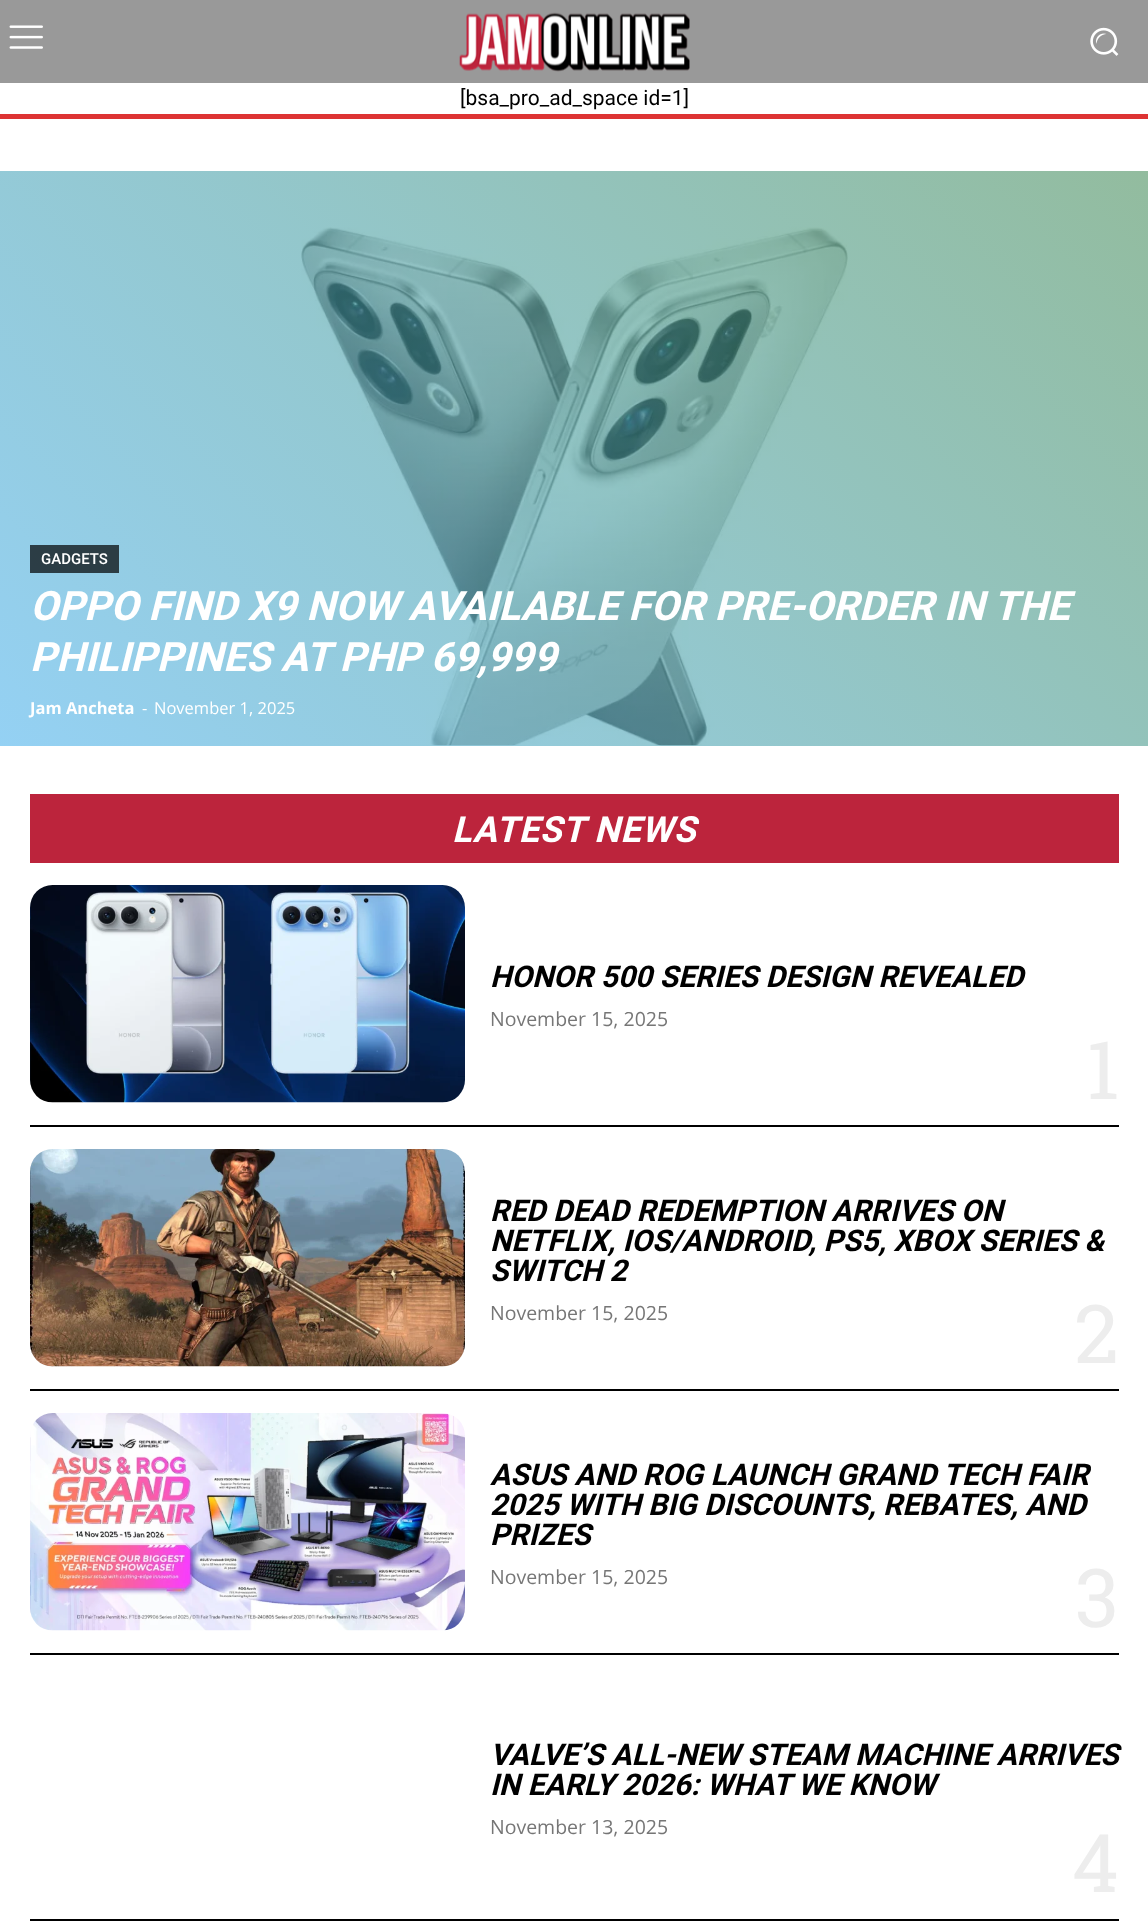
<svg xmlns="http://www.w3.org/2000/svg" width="1148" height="1923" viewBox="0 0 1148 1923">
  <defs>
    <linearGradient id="g1" gradientUnits="userSpaceOnUse" x1="144" y1="889" x2="1005" y2="27"><stop offset="0" stop-color="#4db2ec" stop-opacity="0.6"/><stop offset="1" stop-color="#4a8f5e" stop-opacity="0.6"/></linearGradient>
  </defs>
  <rect width="100%" height="100%" fill="#ffffff"/>
  <rect x="0" y="0" width="1148" height="83" fill="#999999"/>
  <image x="9" y="25" width="34" height="24" href="img1.png"/>
  <image x="459" y="12" width="231" height="60" href="img2.png"/>
  <image x="1090" y="27" width="29" height="29" href="img3.png"/>
  <text x="460" y="105" font-family="Roboto" font-size="21" fill="#000000">[bsa_pro_ad_space id=1]</text>
  <rect x="0" y="114" width="1148" height="5" fill="#dd3333"/>
  <image x="301" y="227" width="547" height="519" href="img4.png"/>
  <rect x="0" y="171" width="1148" height="575" fill="url(#g1)"/>
  <rect x="30" y="545" width="89" height="28" fill="#000000" fill-opacity="0.7"/>
  <text x="41" y="564" font-family="Roboto" font-size="15" font-weight="500" fill="#ffffff">GADGETS</text>
  <text x="30" y="620" font-family="Roboto" font-size="40.5" font-weight="bold" font-style="italic" fill="#ffffff">OPPO FIND X9 NOW AVAILABLE FOR PRE-ORDER IN THE</text>
  <text x="30" y="671" font-family="Roboto" font-size="40.5" font-weight="bold" font-style="italic" fill="#ffffff">PHILIPPINES AT PHP 69,999</text>
  <text x="30" y="714" font-family="Open Sans" font-size="16.5" font-weight="bold" fill="#ffffff">Jam Ancheta</text>
  <text x="142" y="714" font-family="Open Sans" font-size="16.5" fill="#ffffff">-</text>
  <text x="154" y="714" font-family="Open Sans" font-size="16.5" fill="#ffffff">November 1, 2025</text>
  <rect x="30" y="794" width="1089" height="69" fill="#bc243c"/>
  <text x="452" y="842" font-family="Roboto" font-size="36" font-weight="bold" font-style="italic" letter-spacing="0.75" fill="#ffffff">LATEST NEWS</text>
  <rect x="30" y="1125" width="1089" height="2" fill="#000000"/>
  <image x="30" y="885" width="435" height="218" href="img5.png"/>
  <text x="490" y="987" font-family="Roboto" font-size="30" font-weight="bold" font-style="italic" fill="#000000">HONOR 500 SERIES DESIGN REVEALED</text>
  <text x="490" y="1026" font-family="Open Sans" font-size="19.5" fill="#767676">November 15, 2025</text>
  <text x="1086" y="1099" font-family="Roboto Slab" font-size="81" fill="#ededed">1</text>
  <rect x="30" y="1389" width="1089" height="2" fill="#000000"/>
  <image x="30" y="1149" width="435" height="218" href="img6.png"/>
  <text x="490" y="1221" font-family="Roboto" font-size="30" font-weight="bold" font-style="italic" fill="#000000">RED DEAD REDEMPTION ARRIVES ON</text>
  <text x="490" y="1251" font-family="Roboto" font-size="30" font-weight="bold" font-style="italic" fill="#000000">NETFLIX, IOS/ANDROID, PS5, XBOX SERIES &amp;</text>
  <text x="490" y="1281" font-family="Roboto" font-size="30" font-weight="bold" font-style="italic" fill="#000000">SWITCH 2</text>
  <text x="490" y="1320" font-family="Open Sans" font-size="19.5" fill="#767676">November 15, 2025</text>
  <text x="1074" y="1363" font-family="Roboto Slab" font-size="81" fill="#ededed">2</text>
  <rect x="30" y="1653" width="1089" height="2" fill="#000000"/>
  <image x="30" y="1413" width="435" height="218" href="img7.png"/>
  <text x="490" y="1485" font-family="Roboto" font-size="30" font-weight="bold" font-style="italic" fill="#000000">ASUS AND ROG LAUNCH GRAND TECH FAIR</text>
  <text x="490" y="1515" font-family="Roboto" font-size="30" font-weight="bold" font-style="italic" fill="#000000">2025 WITH BIG DISCOUNTS, REBATES, AND</text>
  <text x="490" y="1545" font-family="Roboto" font-size="30" font-weight="bold" font-style="italic" fill="#000000">PRIZES</text>
  <text x="490" y="1584" font-family="Open Sans" font-size="19.5" fill="#767676">November 15, 2025</text>
  <text x="1075" y="1627" font-family="Roboto Slab" font-size="81" fill="#ededed">3</text>
  <rect x="30" y="1919" width="1089" height="2" fill="#000000"/>
  <text x="490" y="1765" font-family="Roboto" font-size="30" font-weight="bold" font-style="italic" fill="#000000">VALVE’S ALL-NEW STEAM MACHINE ARRIVES</text>
  <text x="490" y="1795" font-family="Roboto" font-size="30" font-weight="bold" font-style="italic" fill="#000000">IN EARLY 2026: WHAT WE KNOW</text>
  <text x="490" y="1834" font-family="Open Sans" font-size="19.5" fill="#767676">November 13, 2025</text>
  <text x="1072" y="1892" font-family="Roboto Slab" font-size="81" fill="#ededed">4</text>
</svg>
